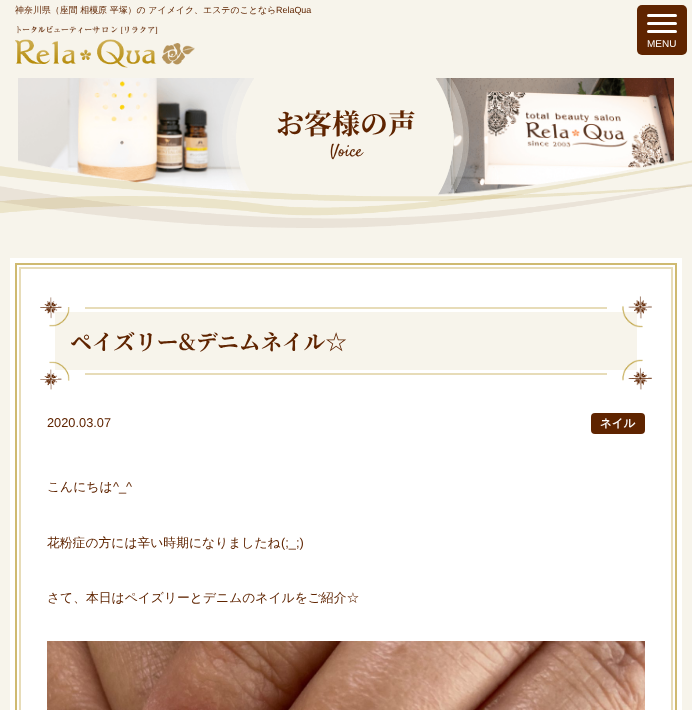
<svg xmlns="http://www.w3.org/2000/svg" width="692" height="710" viewBox="0 0 692 710">
  <rect width="100%" height="100%" fill="#f7f4eb"/>
  <text x="15" y="13" font-family="WenQuanYi Zen Hei" font-size="8.95" font-weight="500" fill="#5f2400">神奈川県（座間 相模原 平塚）の アイメイク、エステのことなら</text>
  <text x="276" y="13" font-family="Liberation Sans" font-size="8.95" fill="#5f2400">RelaQua</text>
  <image x="15" y="26" width="180" height="42" href="img1.png"/>
  <rect x="637" y="5" width="50" height="50" rx="5" fill="#5f2400"/>
  <rect x="647" y="14" width="30" height="3" rx="1.5" fill="#ffffff"/>
  <rect x="647" y="22" width="30" height="3" rx="1.5" fill="#ffffff"/>
  <rect x="647" y="30" width="30" height="3" rx="1.5" fill="#ffffff"/>
  <text x="647" y="47" font-family="Liberation Sans" font-size="10" fill="#ffffff">MENU</text>
  <image x="18" y="78" width="656" height="118" href="img2.png"/>
  <image x="222" y="78" width="247" height="119" href="img3.png"/>
  <text x="276" y="134" font-family="Noto Serif JP" font-size="28" font-weight="bold" fill="#5f2400">お客様の声</text>
  <text x="330" y="156" font-family="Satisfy" font-size="17" fill="#5f2400">Voice</text>
  <image x="0" y="160" width="692" height="68" href="img4.png"/>
  <rect x="10" y="258" width="672" height="452" fill="#ffffff"/>
  <rect x="16" y="264" width="660" height="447" fill="none" stroke="#cfba71" stroke-width="2"/>
  <rect x="20" y="268" width="652" height="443" fill="none" stroke="#e7dcb8" stroke-width="2"/>
  <rect x="55" y="312" width="582" height="58" fill="#f7f4eb"/>
  <image x="40" y="297" width="30" height="30" href="img5.png"/>
  <rect x="85" y="307" width="522" height="2" fill="#e7dcb8"/>
  <image x="622" y="296" width="30" height="32" href="img6.png"/>
  <text x="70" y="350" font-family="Noto Serif JP" font-size="21.75" font-weight="bold" fill="#5f2400">ペイズリー&amp;デニムネイル☆</text>
  <image x="40" y="361" width="30" height="29" href="img7.png"/>
  <rect x="85" y="373" width="522" height="2" fill="#e7dcb8"/>
  <image x="622" y="359" width="30" height="31" href="img8.png"/>
  <text x="47" y="427" font-family="Liberation Sans" font-size="12.8" fill="#5f2400">2020.03.07</text>
  <rect x="591" y="413" width="54" height="21" rx="4" fill="#5f2400"/>
  <text x="600" y="427" font-family="WenQuanYi Zen Hei" font-size="11.5" font-weight="bold" fill="#ffffff">ネイル</text>
  <text x="47" y="491" font-family="WenQuanYi Zen Hei" font-size="12.8" font-weight="500" fill="#5f2400">こんにちは</text>
  <text x="113" y="491" font-family="Liberation Sans" font-size="12.8" fill="#5f2400">^_^</text>
  <text x="47" y="547" font-family="WenQuanYi Zen Hei" font-size="12.8" font-weight="500" fill="#5f2400">花粉症の方には辛い時期になりましたね</text>
  <text x="281" y="547" font-family="Liberation Sans" font-size="12.8" fill="#5f2400">(;_;)</text>
  <text x="47" y="602" font-family="WenQuanYi Zen Hei" font-size="12.8" font-weight="500" fill="#5f2400">さて、本日はペイズリーとデニムのネイルをご紹介☆</text>
  <image x="47" y="641" width="598" height="69" href="img9.png"/>
</svg>
